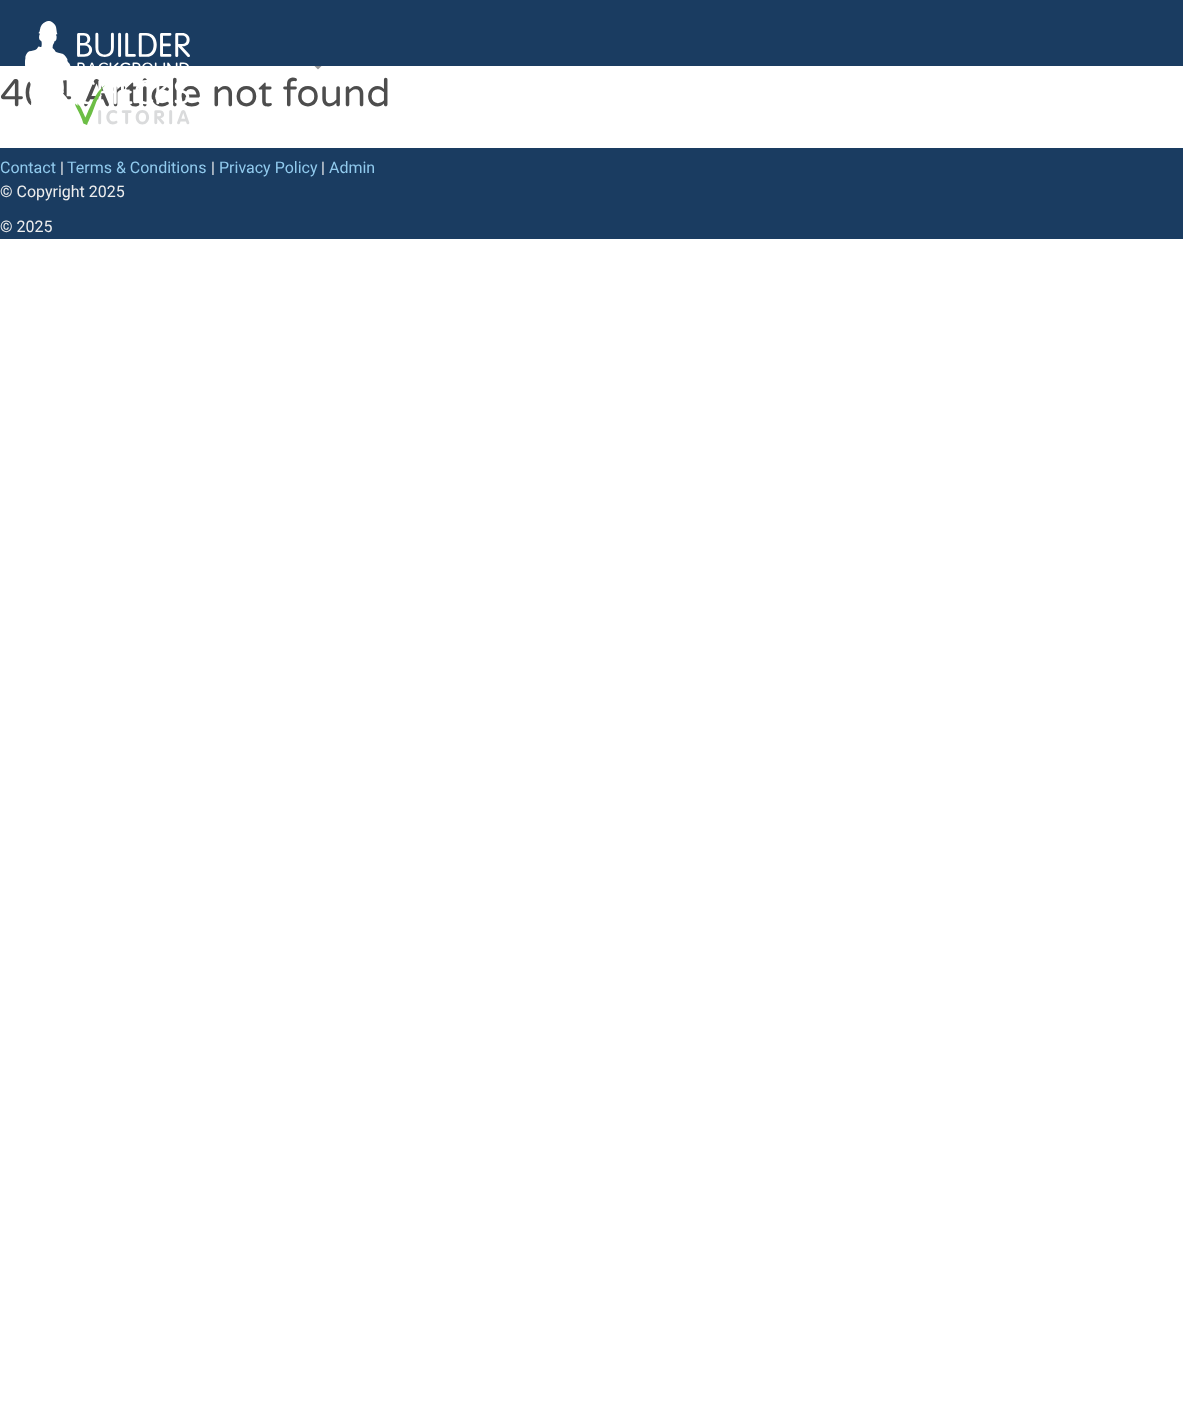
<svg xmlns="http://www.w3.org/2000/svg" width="1183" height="1416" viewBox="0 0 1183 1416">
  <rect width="100%" height="100%" fill="#ffffff"/>
  <rect x="0" y="0" width="1183" height="66" fill="#1a3c61"/>
  <text x="0" y="106" font-family="Varela Round" font-size="38.4" fill="#4d4d4d">404 Article not found</text>
  <image x="25" y="21" width="165" height="104" href="img1.png"/>
  <image x="314" y="66" width="8" height="4" href="img2.png"/>
  <rect x="0" y="148" width="1183" height="91" fill="#1a3c61"/>
  <text x="0" y="173" font-family="Roboto" font-size="16" fill="#91caed">Contact</text>
  <text x="60" y="173" font-family="Roboto" font-size="16" fill="#eeeeee">|</text>
  <text x="67" y="173" font-family="Roboto" font-size="16" fill="#91caed">Terms &amp; Conditions</text>
  <text x="211" y="173" font-family="Roboto" font-size="16" fill="#eeeeee">|</text>
  <text x="219" y="173" font-family="Roboto" font-size="16" fill="#91caed">Privacy Policy</text>
  <text x="321" y="173" font-family="Roboto" font-size="16" fill="#eeeeee">|</text>
  <text x="329" y="173" font-family="Roboto" font-size="16" fill="#91caed">Admin</text>
  <text x="0" y="197" font-family="Roboto" font-size="16" fill="#eeeeee">© Copyright 2025</text>
  <text x="0" y="232" font-family="Roboto" font-size="16" fill="#eeeeee">© 2025</text>
</svg>
